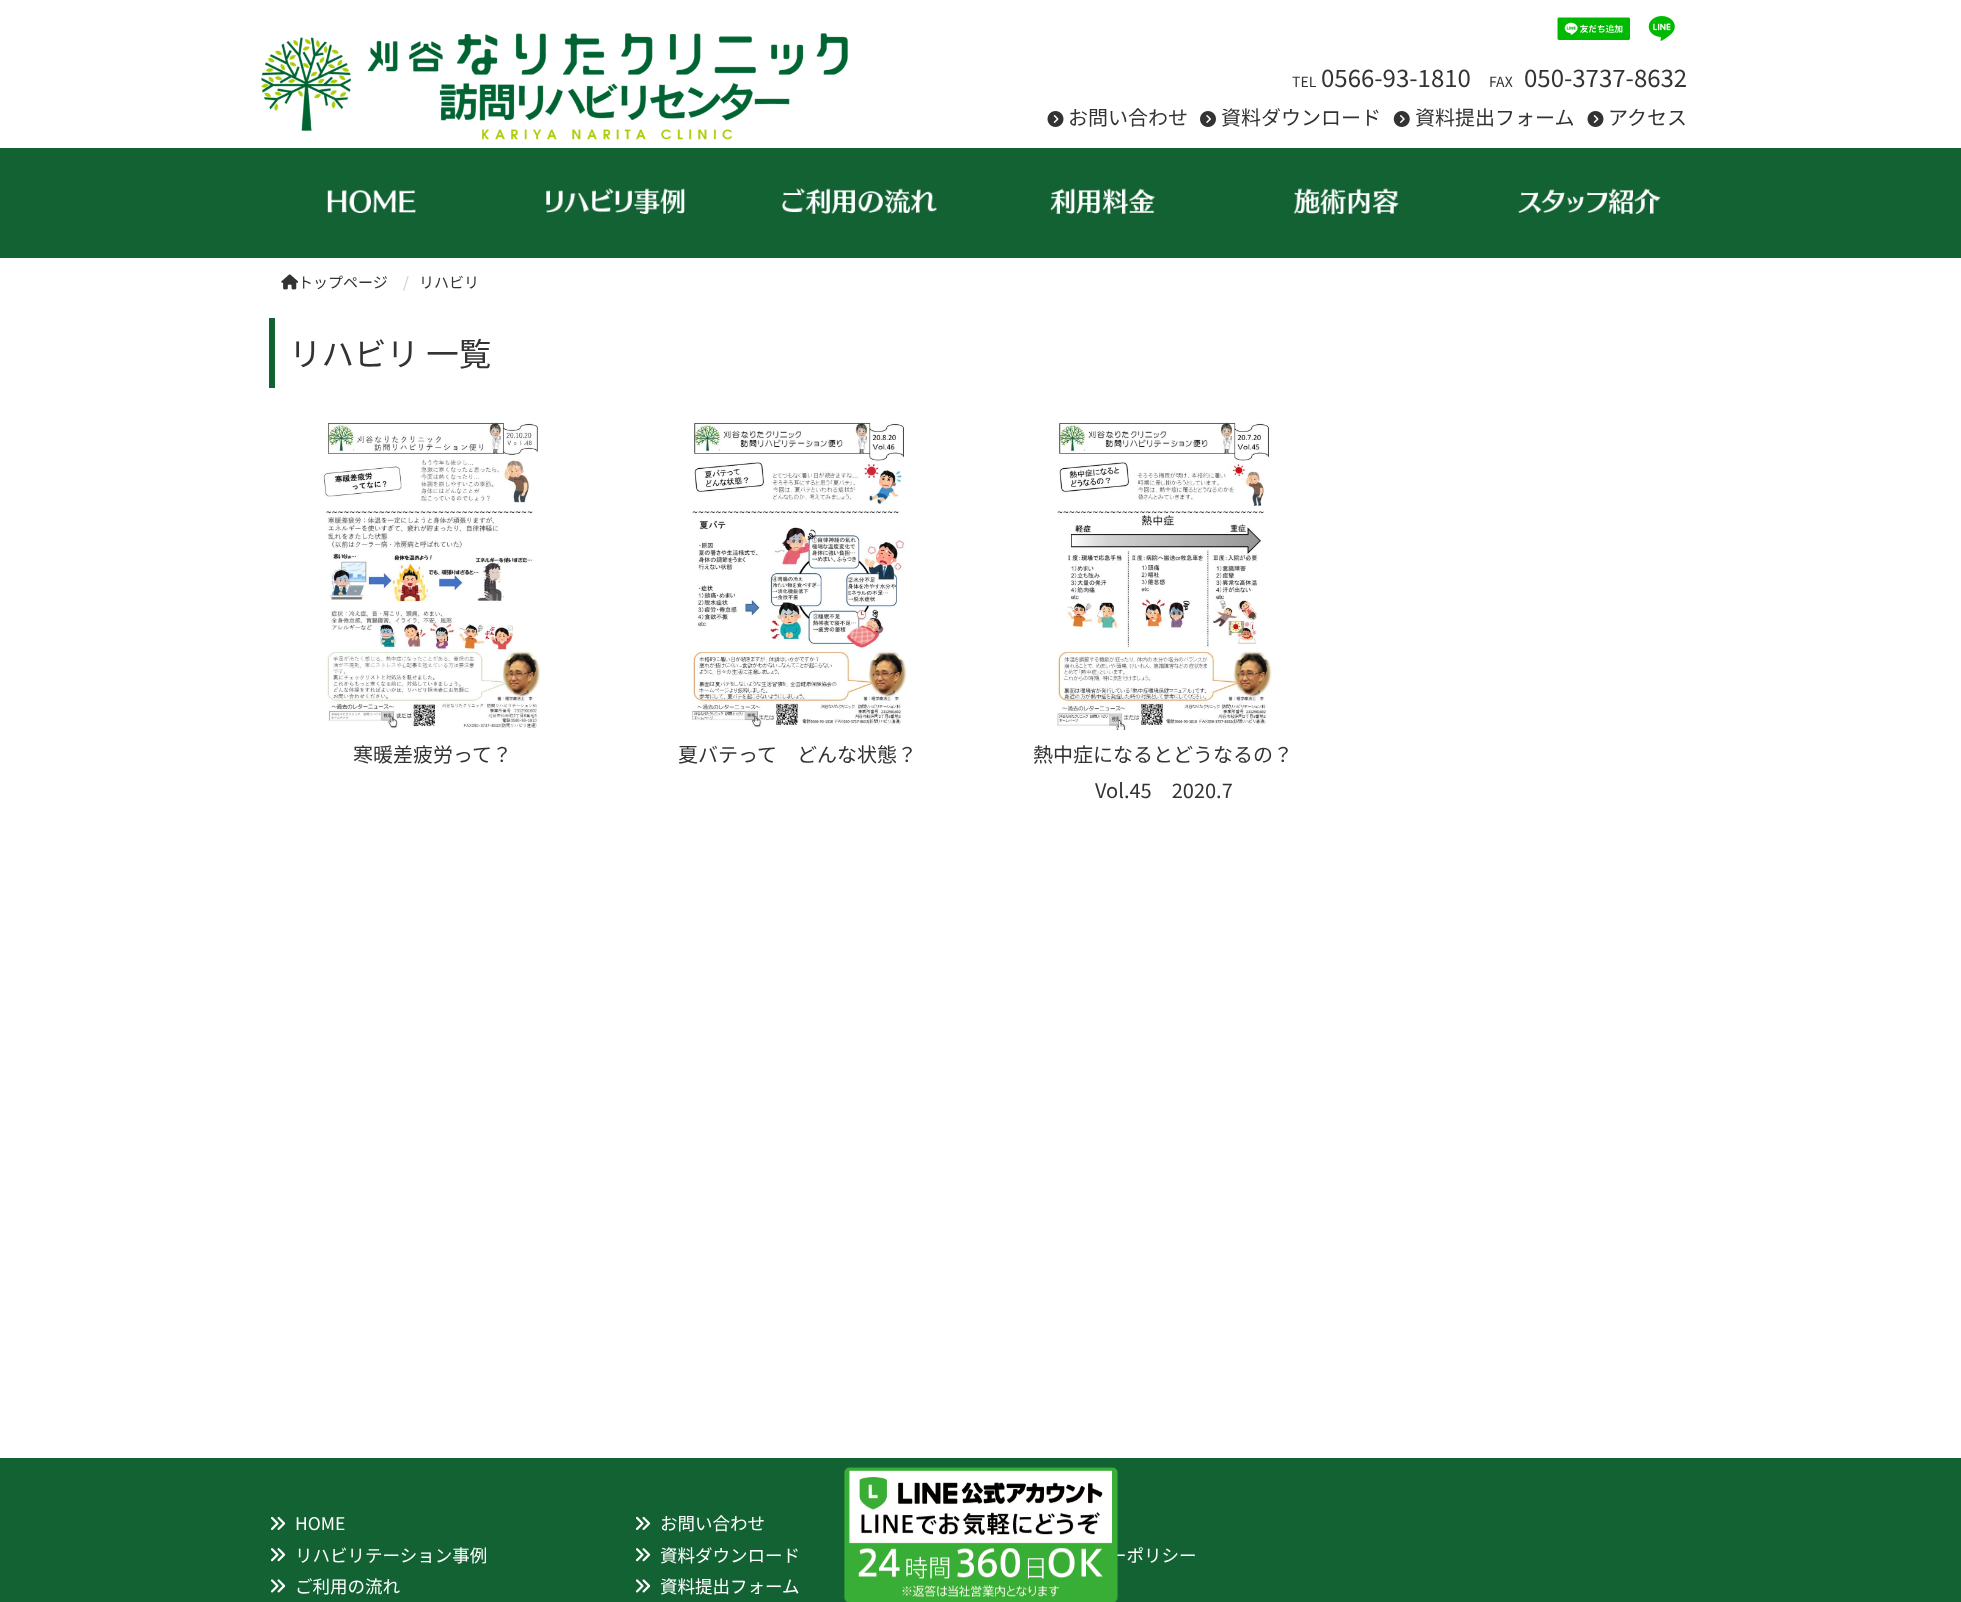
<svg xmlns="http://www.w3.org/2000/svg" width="1961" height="1602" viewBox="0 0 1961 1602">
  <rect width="100%" height="100%" fill="#ffffff"/>
  <image x="261" y="33" width="587" height="107" href="img1.png"/>
  <image x="1557" y="17" width="73" height="23" href="img2.png"/>
  <image x="1648" y="16" width="27" height="25" href="img3.png"/>
  <text x="1292" y="87" font-family="Noto Sans JP" font-size="14" font-weight="100" fill="#333333">TEL</text>
  <text x="1321" y="87" font-family="Noto Sans JP" font-size="24" font-weight="100" fill="#333333">0566-93-1810</text>
  <text x="1489" y="87" font-family="Noto Sans JP" font-size="14" font-weight="100" fill="#333333">FAX</text>
  <text x="1524" y="87" font-family="Noto Sans JP" font-size="24" font-weight="100" fill="#333333">050-3737-8632</text>
  <image x="1047" y="111" width="17" height="16" href="img4.png"/>
  <text x="1068" y="125" font-family="Noto Sans JP" font-size="20" font-weight="100" fill="#333333">お問い合わせ</text>
  <image x="1200" y="111" width="16" height="16" href="img5.png"/>
  <text x="1221" y="125" font-family="Noto Sans JP" font-size="20" font-weight="100" fill="#333333">資料ダウンロード</text>
  <image x="1393" y="111" width="17" height="16" href="img6.png"/>
  <text x="1415" y="125" font-family="Noto Sans JP" font-size="20" font-weight="100" fill="#333333">資料提出フォーム</text>
  <image x="1587" y="111" width="17" height="16" href="img4.png"/>
  <text x="1608" y="125" font-family="Noto Sans JP" font-size="20" font-weight="100" fill="#333333">アクセス</text>
  <rect x="0" y="148" width="1961" height="110" fill="#126234"/>
  <image x="327" y="190" width="89" height="23" href="img7.png"/>
  <image x="545" y="188" width="140" height="26" href="img8.png"/>
  <image x="782" y="188" width="155" height="26" href="img9.png"/>
  <image x="1050" y="188" width="106" height="26" href="img10.png"/>
  <image x="1293" y="188" width="106" height="27" href="img11.png"/>
  <image x="1518" y="188" width="143" height="26" href="img12.png"/>
  <image x="281" y="274" width="18" height="16" href="img13.png"/>
  <text x="298" y="288" font-family="Noto Sans JP" font-size="15" font-weight="100" fill="#333333">トップページ</text>
  <text x="403" y="288" font-family="Noto Sans JP" font-size="15" font-weight="100" fill="#cccccc">/</text>
  <text x="419" y="288" font-family="Noto Sans JP" font-size="15" font-weight="100" fill="#333333">リハビリ</text>
  <rect x="269" y="318" width="6" height="70" fill="#126234"/>
  <text x="289" y="366" font-family="Noto Sans JP" font-size="32.5" font-weight="100" fill="#333333">リハビリ 一覧</text>
  <image x="323" y="422" width="218" height="307" href="img14.png"/>
  <text x="353" y="762" font-family="Noto Sans JP" font-size="20" font-weight="100" fill="#333333">寒暖差疲労って？</text>
  <image x="692" y="422" width="215" height="306" href="img15.png"/>
  <text x="678" y="762" font-family="Noto Sans JP" font-size="20" font-weight="100" fill="#333333">夏バテって　どんな状態？</text>
  <image x="1057" y="422" width="215" height="308" href="img16.png"/>
  <text x="1033" y="762" font-family="Noto Sans JP" font-size="20" font-weight="100" fill="#333333">熱中症になるとどうなるの？</text>
  <text x="1095" y="798" font-family="Noto Sans JP" font-size="20" font-weight="100" fill="#333333">Vol.45　2020.7</text>
  <rect x="0" y="1458" width="1961" height="144" fill="#126234"/>
  <text x="1109" y="1562" font-family="Noto Sans JP" font-size="17.5" font-weight="100" fill="#ffffff">ーポリシー</text>
  <image x="844" y="1467" width="274" height="135" href="img17.png"/>
  <image x="271" y="1516" width="15" height="14" href="img18.png"/>
  <text x="295" y="1530" font-family="Noto Sans JP" font-size="17.5" font-weight="100" fill="#ffffff">HOME</text>
  <image x="271" y="1548" width="15" height="14" href="img19.png"/>
  <text x="295" y="1562" font-family="Noto Sans JP" font-size="17.5" font-weight="100" fill="#ffffff">リハビリテーション事例</text>
  <image x="270" y="1579" width="16" height="14" href="img20.png"/>
  <text x="295" y="1593" font-family="Noto Sans JP" font-size="17.5" font-weight="100" fill="#ffffff">ご利用の流れ</text>
  <image x="636" y="1516" width="15" height="14" href="img18.png"/>
  <text x="660" y="1530" font-family="Noto Sans JP" font-size="17.5" font-weight="100" fill="#ffffff">お問い合わせ</text>
  <image x="636" y="1548" width="15" height="14" href="img19.png"/>
  <text x="660" y="1562" font-family="Noto Sans JP" font-size="17.5" font-weight="100" fill="#ffffff">資料ダウンロード</text>
  <image x="635" y="1579" width="16" height="14" href="img20.png"/>
  <text x="660" y="1593" font-family="Noto Sans JP" font-size="17.5" font-weight="100" fill="#ffffff">資料提出フォーム</text>
</svg>
